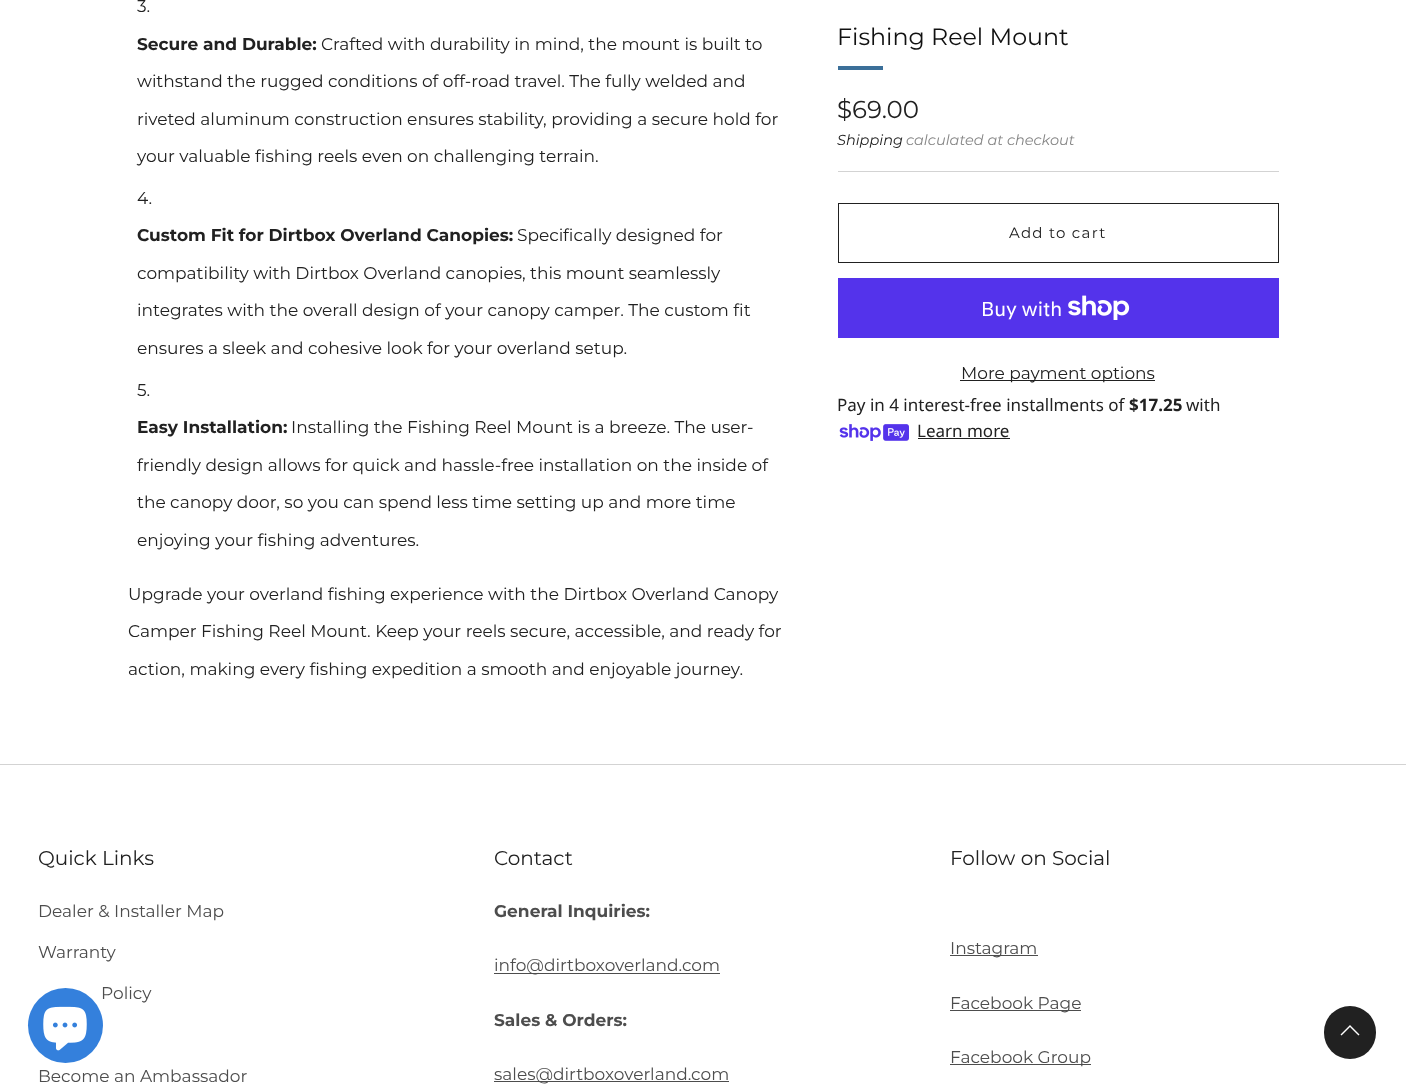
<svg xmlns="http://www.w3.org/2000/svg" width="1406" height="1088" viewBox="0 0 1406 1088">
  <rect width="100%" height="100%" fill="#ffffff"/>
  <text x="137" y="12" font-family="Montserrat" font-size="17" fill="#212121">3.</text>
  <text x="137" y="50" font-family="Montserrat" font-size="17" font-weight="bold" fill="#212121">Secure and Durable:</text>
  <text x="321" y="50" font-family="Montserrat" font-size="17" fill="#212121">Crafted with durability in mind, the mount is built to</text>
  <text x="137" y="87" font-family="Montserrat" font-size="17" fill="#212121">withstand the rugged conditions of off-road travel. The fully welded and</text>
  <text x="137" y="125" font-family="Montserrat" font-size="17" fill="#212121">riveted aluminum construction ensures stability, providing a secure hold for</text>
  <text x="137" y="162" font-family="Montserrat" font-size="17" fill="#212121">your valuable fishing reels even on challenging terrain.</text>
  <text x="137" y="204" font-family="Montserrat" font-size="17" fill="#212121">4.</text>
  <text x="137" y="241" font-family="Montserrat" font-size="17" font-weight="bold" fill="#212121">Custom Fit for Dirtbox Overland Canopies:</text>
  <text x="517" y="241" font-family="Montserrat" font-size="17" fill="#212121">Specifically designed for</text>
  <text x="137" y="279" font-family="Montserrat" font-size="17" fill="#212121">compatibility with Dirtbox Overland canopies, this mount seamlessly</text>
  <text x="137" y="316" font-family="Montserrat" font-size="17" fill="#212121">integrates with the overall design of your canopy camper. The custom fit</text>
  <text x="137" y="354" font-family="Montserrat" font-size="17" fill="#212121">ensures a sleek and cohesive look for your overland setup.</text>
  <text x="137" y="396" font-family="Montserrat" font-size="17" fill="#212121">5.</text>
  <text x="137" y="433" font-family="Montserrat" font-size="17" font-weight="bold" fill="#212121">Easy Installation:</text>
  <text x="291" y="433" font-family="Montserrat" font-size="17" fill="#212121">Installing the Fishing Reel Mount is a breeze. The user-</text>
  <text x="137" y="471" font-family="Montserrat" font-size="17" fill="#212121">friendly design allows for quick and hassle-free installation on the inside of</text>
  <text x="137" y="508" font-family="Montserrat" font-size="17" fill="#212121">the canopy door, so you can spend less time setting up and more time</text>
  <text x="137" y="546" font-family="Montserrat" font-size="17" fill="#212121">enjoying your fishing adventures.</text>
  <text x="128" y="600" font-family="Montserrat" font-size="17" fill="#212121">Upgrade your overland fishing experience with the Dirtbox Overland Canopy</text>
  <text x="128" y="637" font-family="Montserrat" font-size="17" fill="#212121">Camper Fishing Reel Mount. Keep your reels secure, accessible, and ready for</text>
  <text x="128" y="675" font-family="Montserrat" font-size="17" fill="#212121">action, making every fishing expedition a smooth and enjoyable journey.</text>
  <text x="837" y="45" font-family="Montserrat" font-size="23.75" fill="#111111">Fishing Reel Mount</text>
  <rect x="838" y="66" width="45" height="4" fill="#3b6f99"/>
  <text x="837" y="118" font-family="Montserrat" font-size="24.5" fill="#212121">$69.00</text>
  <text x="837" y="145" font-family="Montserrat" font-size="14.5" font-style="italic" fill="#212121">Shipping</text>
  <text x="906" y="145" font-family="Montserrat" font-size="14.5" font-style="italic" fill="#858585">calculated at checkout</text>
  <rect x="838" y="171" width="441" height="1" fill="#d3d3d3"/>
  <rect x="838.5" y="203.5" width="440" height="59" fill="none" stroke="#212121"/>
  <text x="1009" y="238" font-family="Montserrat" font-size="15" letter-spacing="1.25" fill="#212121">Add to cart</text>
  <rect x="838" y="278" width="441" height="60" fill="#5433eb"/>
  <text x="981" y="316" font-family="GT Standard" font-size="20" fill="#ffffff">Buy with</text>
  <image x="1068" y="295" width="62" height="25" href="img1.png"/>
  <rect x="960" y="380" width="195" height="1" fill="#212121"/>
  <text x="961" y="379" font-family="Montserrat" font-size="17" fill="#212121">More payment options</text>
  <text x="837" y="411" font-family="Noto Sans" font-size="17" fill="#212121">Pay in 4 interest-free installments of</text>
  <text x="1129" y="411" font-family="Noto Sans" font-size="17" font-weight="bold" fill="#212121">$17.25</text>
  <text x="1186" y="411" font-family="Noto Sans" font-size="17" fill="#212121">with</text>
  <image x="839" y="424" width="70" height="17" href="img2.png"/>
  <text x="917" y="437" font-family="Noto Sans" font-size="17" fill="#212121">Learn more</text>
  <rect x="918" y="438" width="92" height="1" fill="#212121"/>
  <rect x="0" y="764" width="1406" height="1" fill="#d3d3d3"/>
  <text x="38" y="865" font-family="Montserrat" font-size="20" fill="#212121">Quick Links</text>
  <text x="38" y="917" font-family="Montserrat" font-size="17" fill="#4d4d4d">Dealer &amp; Installer Map</text>
  <text x="38" y="958" font-family="Montserrat" font-size="17" fill="#4d4d4d">Warranty</text>
  <text x="101" y="999" font-family="Montserrat" font-size="17" fill="#4d4d4d">Policy</text>
  <text x="38" y="1082" font-family="Montserrat" font-size="17" fill="#4d4d4d">Become an Ambassador</text>
  <text x="494" y="865" font-family="Montserrat" font-size="20" fill="#212121">Contact</text>
  <text x="494" y="917" font-family="Montserrat" font-size="17" font-weight="bold" fill="#4d4d4d">General Inquiries:</text>
  <rect x="494" y="973" width="226" height="1" fill="#4d4d4d"/>
  <text x="494" y="971" font-family="Montserrat" font-size="17" fill="#4d4d4d">info@dirtboxoverland.com</text>
  <text x="494" y="1026" font-family="Montserrat" font-size="17" font-weight="bold" fill="#4d4d4d">Sales &amp; Orders:</text>
  <rect x="494" y="1081" width="235" height="1" fill="#4d4d4d"/>
  <text x="494" y="1080" font-family="Montserrat" font-size="17" fill="#4d4d4d">sales@dirtboxoverland.com</text>
  <text x="950" y="865" font-family="Montserrat" font-size="20" fill="#212121">Follow on Social</text>
  <rect x="950" y="955" width="88" height="1" fill="#4d4d4d"/>
  <text x="950" y="954" font-family="Montserrat" font-size="17" fill="#4d4d4d">Instagram</text>
  <rect x="950" y="1010" width="131" height="1" fill="#4d4d4d"/>
  <text x="950" y="1009" font-family="Montserrat" font-size="17" fill="#4d4d4d">Facebook Page</text>
  <rect x="950" y="1064" width="141" height="1" fill="#4d4d4d"/>
  <text x="950" y="1063" font-family="Montserrat" font-size="17" fill="#4d4d4d">Facebook Group</text>
  <circle cx="65.5" cy="1025.5" r="37.5" fill="#3480dc"/>
  <image x="43" y="1006" width="44" height="45" href="img3.png"/>
  <rect x="1324" y="1006" width="52" height="53" rx="26" fill="#212121"/>
  <path d="M1341.5 1035.5L1340.5 1034.5L1350 1025L1359.5 1034.5L1358.5 1035.5L1350 1027Z" fill="#ffffff"/>
</svg>
